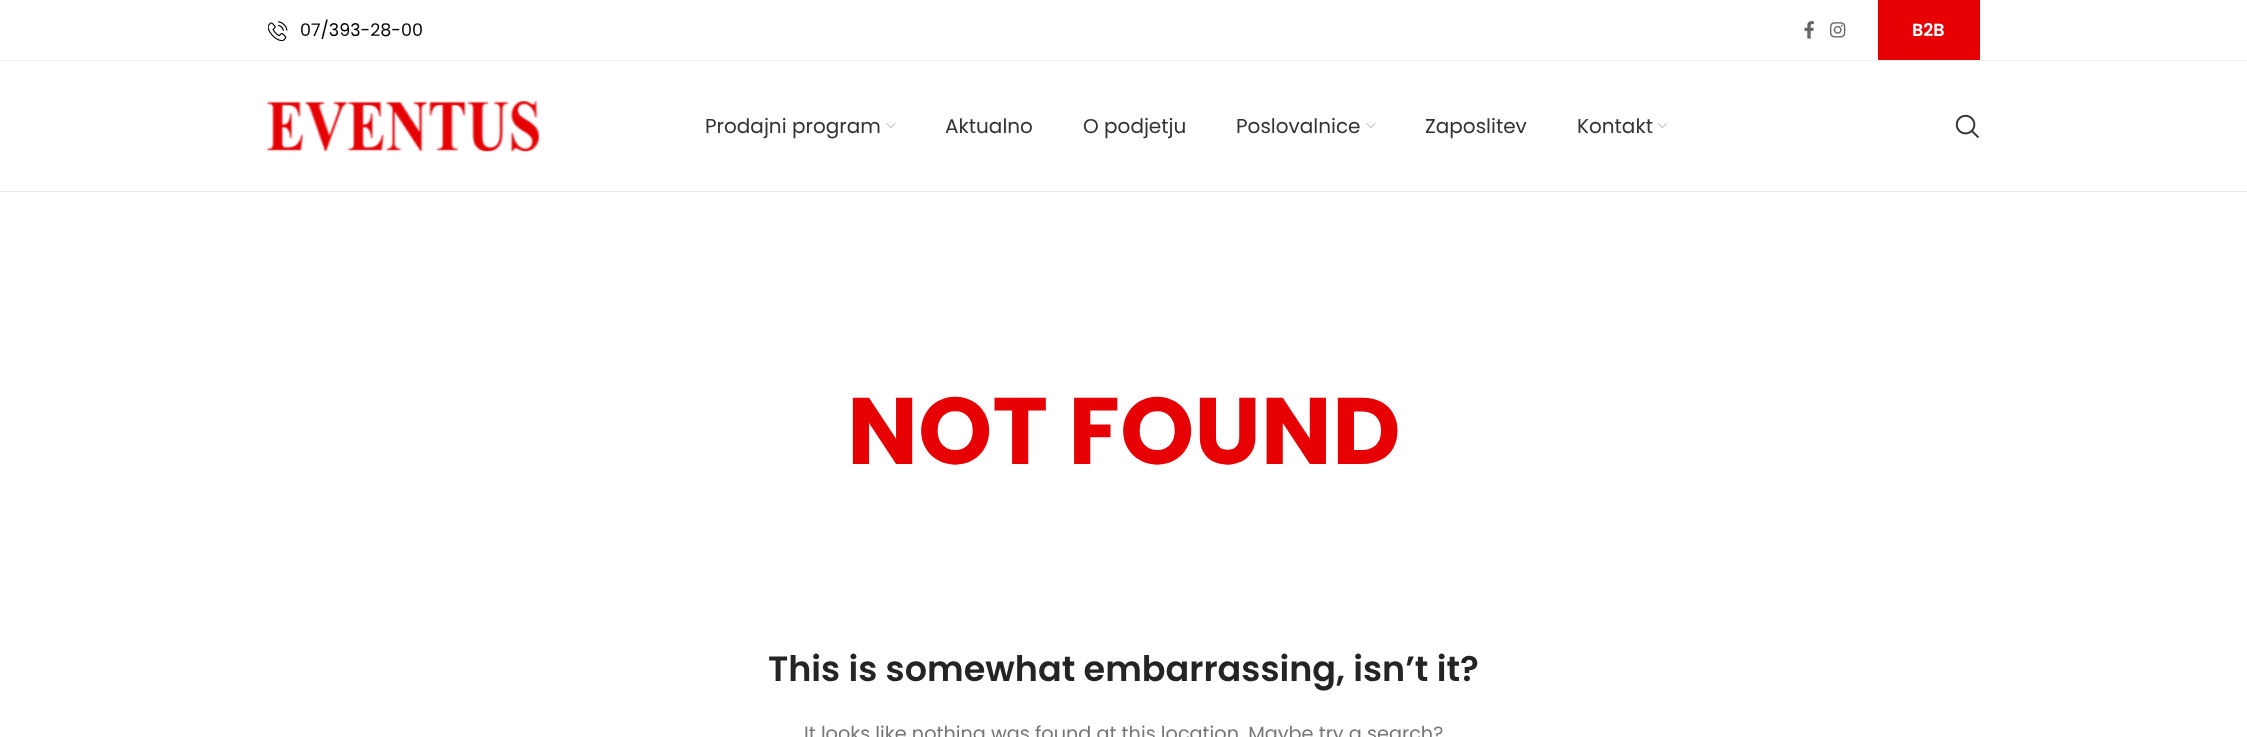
<svg xmlns="http://www.w3.org/2000/svg" width="2247" height="737" viewBox="0 0 2247 737">
  <rect width="100%" height="100%" fill="#ffffff"/>
  <rect x="0" y="60" width="2247" height="1" fill="#f0f0f0"/>
  <image x="268" y="21" width="20" height="20" href="img1.png"/>
  <text x="300" y="36" font-family="Poppins" font-size="17.5" fill="#000000">07/393-28-00</text>
  <image x="1804" y="21" width="10" height="18" href="img2.png"/>
  <image x="1830" y="22" width="16" height="16" href="img3.png"/>
  <rect x="1878" y="0" width="102" height="60" fill="#e60004"/>
  <text x="1912" y="36" font-family="Poppins" font-size="17.5" font-weight="600" fill="#ffffff">B2B</text>
  <rect x="0" y="191" width="2247" height="1" fill="#e6e6e6"/>
  <image x="267" y="101" width="273" height="51" href="img4.png"/>
  <text x="705" y="133" font-family="Poppins" font-size="20" fill="#333333">Prodajni program</text>
  <image x="886" y="123" width="10" height="5" href="img5.png"/>
  <text x="945" y="133" font-family="Poppins" font-size="20" fill="#333333">Aktualno</text>
  <text x="1083" y="133" font-family="Poppins" font-size="20" fill="#333333">O podjetju</text>
  <text x="1236" y="133" font-family="Poppins" font-size="20" fill="#333333">Poslovalnice</text>
  <image x="1366" y="123" width="10" height="5" href="img5.png"/>
  <text x="1425" y="133" font-family="Poppins" font-size="20" fill="#333333">Zaposlitev</text>
  <text x="1577" y="133" font-family="Poppins" font-size="20" fill="#333333">Kontakt</text>
  <image x="1657" y="123" width="10" height="5" href="img6.png"/>
  <image x="1955" y="114" width="24" height="25" href="img7.png"/>
  <text x="847" y="464" font-family="Poppins" font-size="94.5" font-weight="bold" fill="#e60004">NOT FOUND</text>
  <text x="768" y="681" font-family="Poppins" font-size="35" font-weight="600" fill="#242424">This is somewhat embarrassing, isn’t it?</text>
  <text x="804" y="740" font-family="Poppins" font-size="19.25" fill="#767676">It looks like nothing was found at this location. Maybe try a search?</text>
</svg>
